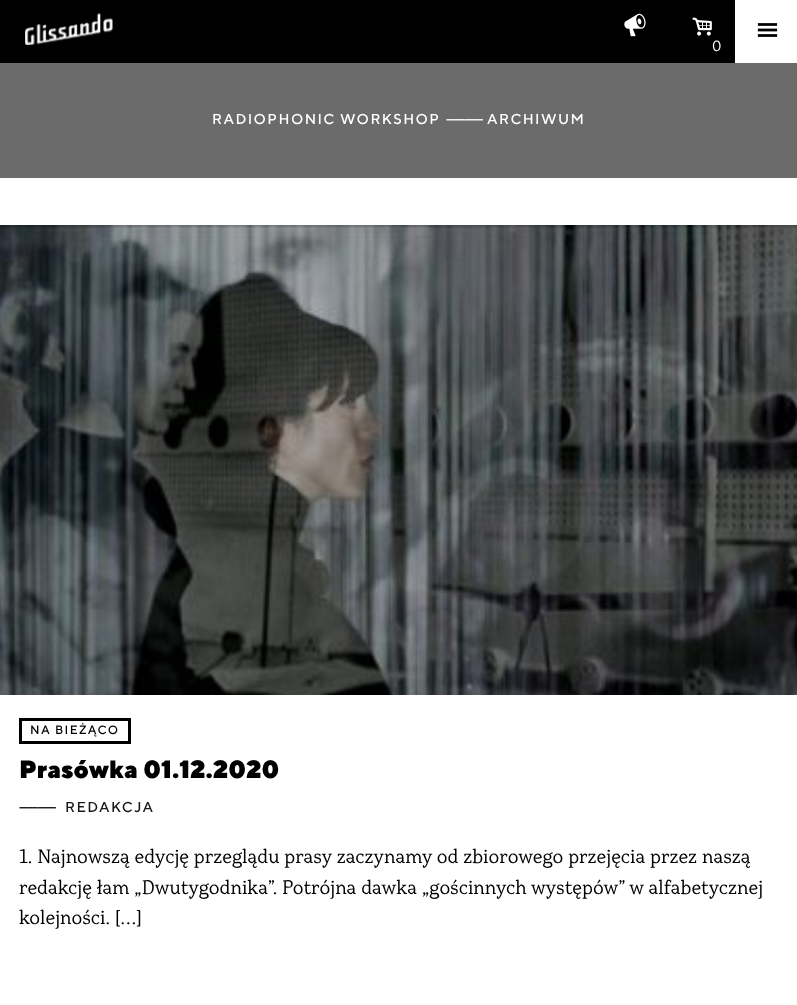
<svg xmlns="http://www.w3.org/2000/svg" width="797" height="1005" viewBox="0 0 797 1005">
  <rect width="100%" height="100%" fill="#ffffff"/>
  <rect x="0" y="0" width="735" height="63" fill="#000000"/>
  <image x="25" y="13" width="88" height="32" href="img1.png"/>
  <image x="624" y="13" width="22" height="24" href="img2.png"/>
  <image x="757" y="23" width="21" height="14" href="img3.png"/>
  <image x="692" y="17" width="20" height="19" href="img4.png"/>
  <text x="712" y="51" font-family="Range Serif" font-size="14.4" fill="#ffffff">0</text>
  <rect x="0" y="63" width="797" height="115" fill="#6b6b6b"/>
  <text x="212" y="124" font-family="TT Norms" font-size="14.4" font-weight="500" letter-spacing="1.4" fill="#ffffff">RADIOPHONIC WORKSHOP</text>
  <text x="446" y="124" font-family="TT Norms" font-size="14.4" font-weight="500" letter-spacing="-1" fill="#ffffff">————</text>
  <text x="487" y="124" font-family="TT Norms" font-size="14.4" font-weight="500" letter-spacing="1.4" fill="#ffffff">ARCHIWUM</text>
  <image x="0" y="225" width="797" height="470" href="img5.png"/>
  <rect x="20.5" y="719.5" width="109" height="23" fill="none" stroke="#000000" stroke-width="3"/>
  <text x="30" y="734" font-family="TT Norms" font-size="12" font-weight="500" letter-spacing="1.4" fill="#000000">NA BIEŻĄCO</text>
  <text x="19" y="778" font-family="TT Norms" font-size="25" font-weight="900" fill="#000000">Prasówka 01.12.2020</text>
  <text x="19" y="812" font-family="TT Norms" font-size="14.4" font-weight="500" letter-spacing="-1" fill="#000000">————</text>
  <text x="65" y="812" font-family="TT Norms" font-size="14.4" font-weight="500" letter-spacing="1.4" fill="#1a1a1a">REDAKCJA</text>
  <text x="19" y="863" font-family="Range Serif" font-size="19.2" fill="#000000">1. Najnowszą edycję przeglądu prasy zaczynamy od zbiorowego przejęcia przez naszą</text>
  <text x="19" y="894" font-family="Range Serif" font-size="19.2" fill="#000000">redakcję łam „Dwutygodnika”. Potrójna dawka „gościnnych występów” w alfabetycznej</text>
  <text x="19" y="924" font-family="Range Serif" font-size="19.2" fill="#000000">kolejności. […]</text>
</svg>
